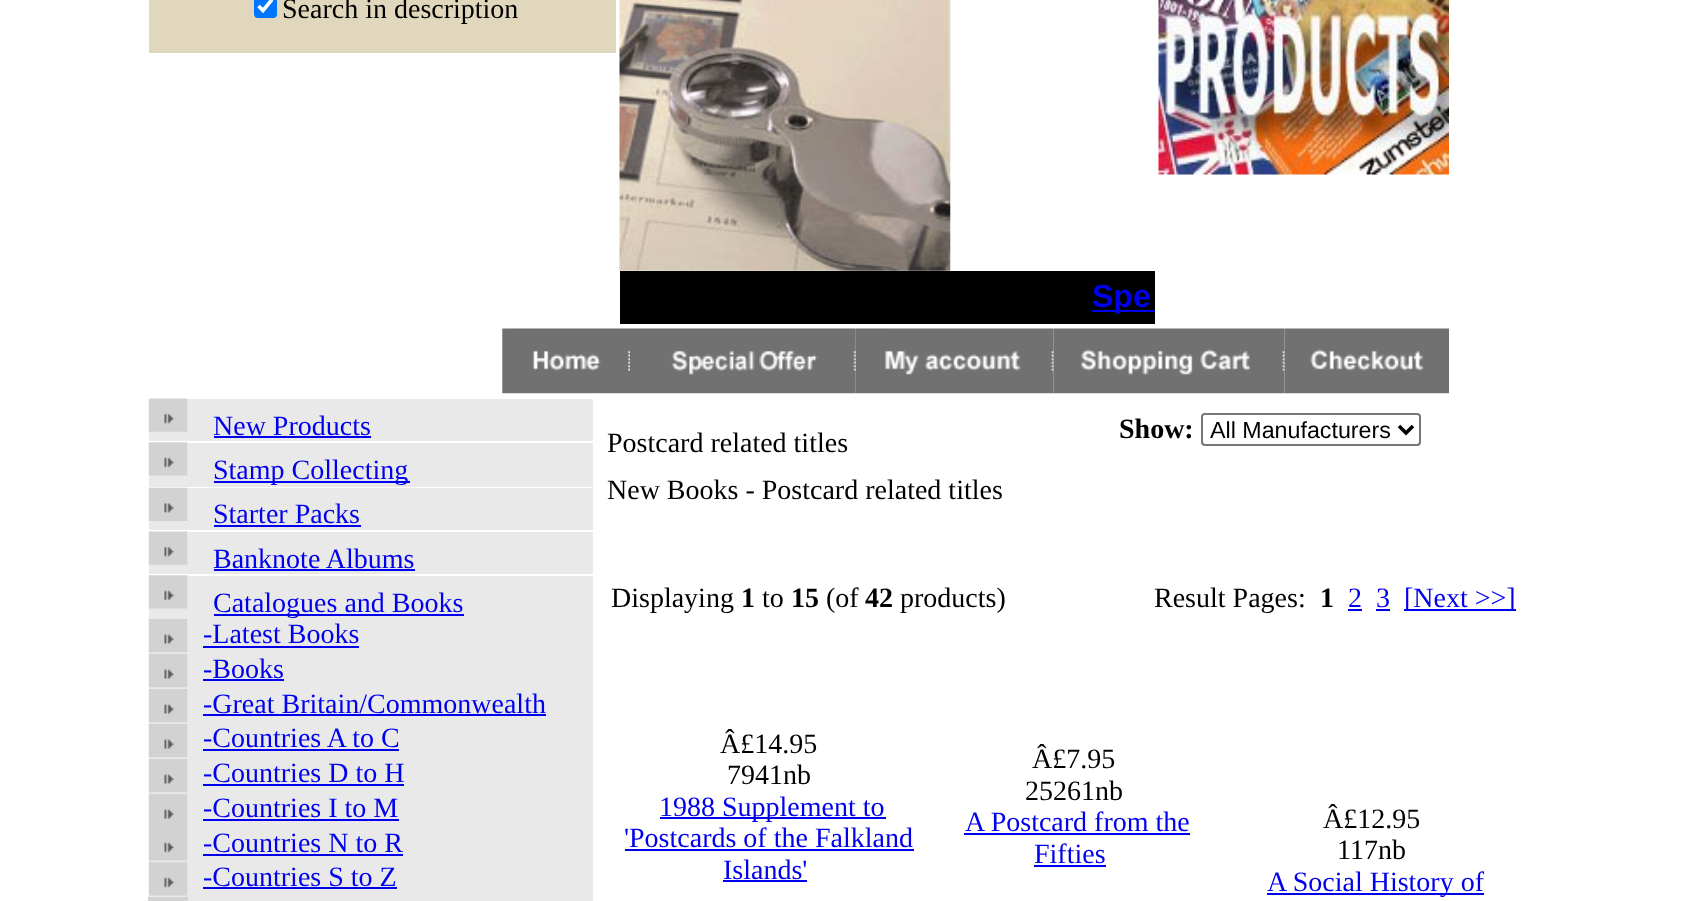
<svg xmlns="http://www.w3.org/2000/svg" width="1688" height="901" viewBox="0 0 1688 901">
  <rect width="100%" height="100%" fill="#ffffff"/>
  <rect x="149" y="0" width="467" height="53" fill="#e0d7bc"/>
  <rect x="254" y="-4" width="23" height="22" rx="4" fill="#0075ff"/>
  <path d="M258.5 6L263 10.5L272-.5" fill="none" stroke="#ffffff" stroke-width="3.6"/>
  <text x="282" y="18" font-family="Liberation Serif" font-size="28" fill="#000000">Search in description</text>
  <image x="619" y="0" width="332" height="271" href="img1.png"/>
  <image x="1158" y="0" width="291" height="175" href="img2.png"/>
  <rect x="620" y="271" width="535" height="53" fill="#010000"/>
  <rect x="1092" y="310" width="63" height="2" fill="#0000ee"/>
  <text x="1092" y="307" font-family="Liberation Sans" font-size="32" font-weight="bold" fill="#0000ee">Spe</text>
  <image x="502" y="328" width="128" height="66" href="img3.png"/>
  <image x="630" y="328" width="226" height="66" href="img4.png"/>
  <image x="855" y="328" width="199" height="66" href="img5.png"/>
  <image x="1053" y="328" width="232" height="66" href="img6.png"/>
  <image x="1284" y="328" width="165" height="66" href="img7.png"/>
  <rect x="149" y="399" width="444" height="42" fill="#e9e9e9"/>
  <image x="148" y="398" width="40" height="34" href="img8.png"/>
  <text x="213" y="435" font-family="Liberation Serif" font-size="28" fill="#0000ee">New Products</text>
  <rect x="214" y="436" width="157" height="2" fill="#0000ee"/>
  <rect x="149" y="443" width="444" height="44" fill="#e9e9e9"/>
  <image x="148" y="442" width="40" height="34" href="img9.png"/>
  <rect x="214" y="481" width="196" height="2" fill="#0000ee"/>
  <text x="213" y="479" font-family="Liberation Serif" font-size="28" fill="#0000ee">Stamp Collecting</text>
  <rect x="149" y="488" width="444" height="42" fill="#e9e9e9"/>
  <image x="148" y="487" width="40" height="34" href="img10.png"/>
  <text x="213" y="523" font-family="Liberation Serif" font-size="28" fill="#0000ee">Starter Packs</text>
  <rect x="214" y="525" width="147" height="2" fill="#0000ee"/>
  <rect x="149" y="532" width="444" height="42" fill="#e9e9e9"/>
  <image x="148" y="531" width="40" height="34" href="img8.png"/>
  <text x="213" y="568" font-family="Liberation Serif" font-size="28" fill="#0000ee">Banknote Albums</text>
  <rect x="214" y="569" width="201" height="2" fill="#0000ee"/>
  <rect x="149" y="576" width="444" height="325" fill="#e9e9e9"/>
  <image x="148" y="575" width="40" height="34" href="img9.png"/>
  <rect x="214" y="614" width="250" height="2" fill="#0000ee"/>
  <text x="213" y="612" font-family="Liberation Serif" font-size="28" fill="#0000ee">Catalogues and Books</text>
  <image x="148" y="619" width="40" height="34" href="img11.png"/>
  <text x="203" y="643" font-family="Liberation Serif" font-size="28" fill="#0000ee">-Latest Books</text>
  <rect x="203" y="646" width="156" height="2" fill="#0000ee"/>
  <image x="148" y="654" width="40" height="34" href="img11.png"/>
  <text x="203" y="678" font-family="Liberation Serif" font-size="28" fill="#0000ee">-Books</text>
  <rect x="203" y="679" width="81" height="2" fill="#0000ee"/>
  <image x="148" y="689" width="40" height="34" href="img11.png"/>
  <text x="203" y="713" font-family="Liberation Serif" font-size="28" fill="#0000ee">-Great Britain/Commonwealth</text>
  <rect x="203" y="714" width="343" height="2" fill="#0000ee"/>
  <image x="148" y="724" width="40" height="34" href="img11.png"/>
  <text x="203" y="747" font-family="Liberation Serif" font-size="28" fill="#0000ee">-Countries A to C</text>
  <rect x="203" y="749" width="196" height="2" fill="#0000ee"/>
  <image x="148" y="759" width="40" height="34" href="img11.png"/>
  <text x="203" y="782" font-family="Liberation Serif" font-size="28" fill="#0000ee">-Countries D to H</text>
  <rect x="203" y="784" width="201" height="2" fill="#0000ee"/>
  <image x="148" y="794" width="40" height="34" href="img11.png"/>
  <text x="203" y="817" font-family="Liberation Serif" font-size="28" fill="#0000ee">-Countries I to M</text>
  <rect x="203" y="819" width="196" height="2" fill="#0000ee"/>
  <image x="148" y="827" width="40" height="34" href="img12.png"/>
  <text x="203" y="852" font-family="Liberation Serif" font-size="28" fill="#0000ee">-Countries N to R</text>
  <rect x="203" y="854" width="200" height="2" fill="#0000ee"/>
  <image x="148" y="862" width="40" height="34" href="img13.png"/>
  <text x="203" y="886" font-family="Liberation Serif" font-size="28" fill="#0000ee">-Countries S to Z</text>
  <rect x="203" y="887" width="194" height="2" fill="#0000ee"/>
  <rect x="148" y="897" width="40" height="4" fill="#d2d2d2"/>
  <text x="1119" y="438" font-family="Liberation Serif" font-size="28" font-weight="bold" fill="#000000">Show:</text>
  <rect x="1202" y="414" width="218" height="31" rx="3" fill="none" stroke="#767676" stroke-width="2"/>
  <path d="M1399 426L1406 433L1413 426" fill="none" stroke="#000000" stroke-width="3.5"/>
  <text x="1210" y="438" font-family="Liberation Sans" font-size="23.25" fill="#000000">All Manufacturers</text>
  <text x="607" y="452" font-family="Liberation Serif" font-size="28" fill="#000000">Postcard related titles</text>
  <text x="607" y="499" font-family="Liberation Serif" font-size="28" fill="#000000">New Books - Postcard related titles</text>
  <text x="611" y="607" font-family="Liberation Serif" font-size="28" fill="#000000">Displaying</text>
  <text x="741" y="607" font-family="Liberation Serif" font-size="28" font-weight="bold" fill="#000000">1</text>
  <text x="762" y="607" font-family="Liberation Serif" font-size="28" fill="#000000">to</text>
  <text x="791" y="607" font-family="Liberation Serif" font-size="28" font-weight="bold" fill="#000000">15</text>
  <text x="826" y="607" font-family="Liberation Serif" font-size="28" fill="#000000">(of</text>
  <text x="865" y="607" font-family="Liberation Serif" font-size="28" font-weight="bold" fill="#000000">42</text>
  <text x="900" y="607" font-family="Liberation Serif" font-size="28" fill="#000000">products)</text>
  <text x="1154" y="607" font-family="Liberation Serif" font-size="28" fill="#000000">Result Pages:</text>
  <text x="1320" y="607" font-family="Liberation Serif" font-size="28" font-weight="bold" fill="#000000">1</text>
  <text x="1348" y="607" font-family="Liberation Serif" font-size="28" fill="#0000ee">2</text>
  <rect x="1348" y="609" width="14" height="2" fill="#0000ee"/>
  <text x="1376" y="607" font-family="Liberation Serif" font-size="28" fill="#0000ee">3</text>
  <rect x="1376" y="609" width="14" height="2" fill="#0000ee"/>
  <rect x="1404" y="609" width="112" height="2" fill="#0000ee"/>
  <text x="1404" y="607" font-family="Liberation Serif" font-size="28" fill="#0000ee">[Next &gt;&gt;]</text>
  <text x="720" y="753" font-family="Liberation Serif" font-size="28" fill="#000000">Â£14.95</text>
  <text x="727" y="784" font-family="Liberation Serif" font-size="28" fill="#000000">7941nb</text>
  <rect x="660" y="817" width="226" height="2" fill="#0000ee"/>
  <text x="659" y="816" font-family="Liberation Serif" font-size="28" fill="#0000ee">1988 Supplement to</text>
  <text x="624" y="847" font-family="Liberation Serif" font-size="28" fill="#0000ee">'Postcards of the Falkland</text>
  <rect x="625" y="849" width="289" height="2" fill="#0000ee"/>
  <text x="723" y="879" font-family="Liberation Serif" font-size="28" fill="#0000ee">Islands'</text>
  <rect x="723" y="880" width="84" height="2" fill="#0000ee"/>
  <text x="1032" y="768" font-family="Liberation Serif" font-size="28" fill="#000000">Â£7.95</text>
  <text x="1025" y="800" font-family="Liberation Serif" font-size="28" fill="#000000">25261nb</text>
  <text x="965" y="831" font-family="Liberation Serif" font-size="28" fill="#0000ee">A Postcard from the</text>
  <rect x="964" y="833" width="226" height="2" fill="#0000ee"/>
  <text x="1034" y="863" font-family="Liberation Serif" font-size="28" fill="#0000ee">Fifties</text>
  <rect x="1034" y="865" width="72" height="2" fill="#0000ee"/>
  <text x="1323" y="828" font-family="Liberation Serif" font-size="28" fill="#000000">Â£12.95</text>
  <text x="1337" y="859" font-family="Liberation Serif" font-size="28" fill="#000000">117nb</text>
  <rect x="1267" y="893" width="217" height="2" fill="#0000ee"/>
  <text x="1267" y="891" font-family="Liberation Serif" font-size="28" fill="#0000ee">A Social History of</text>
</svg>
